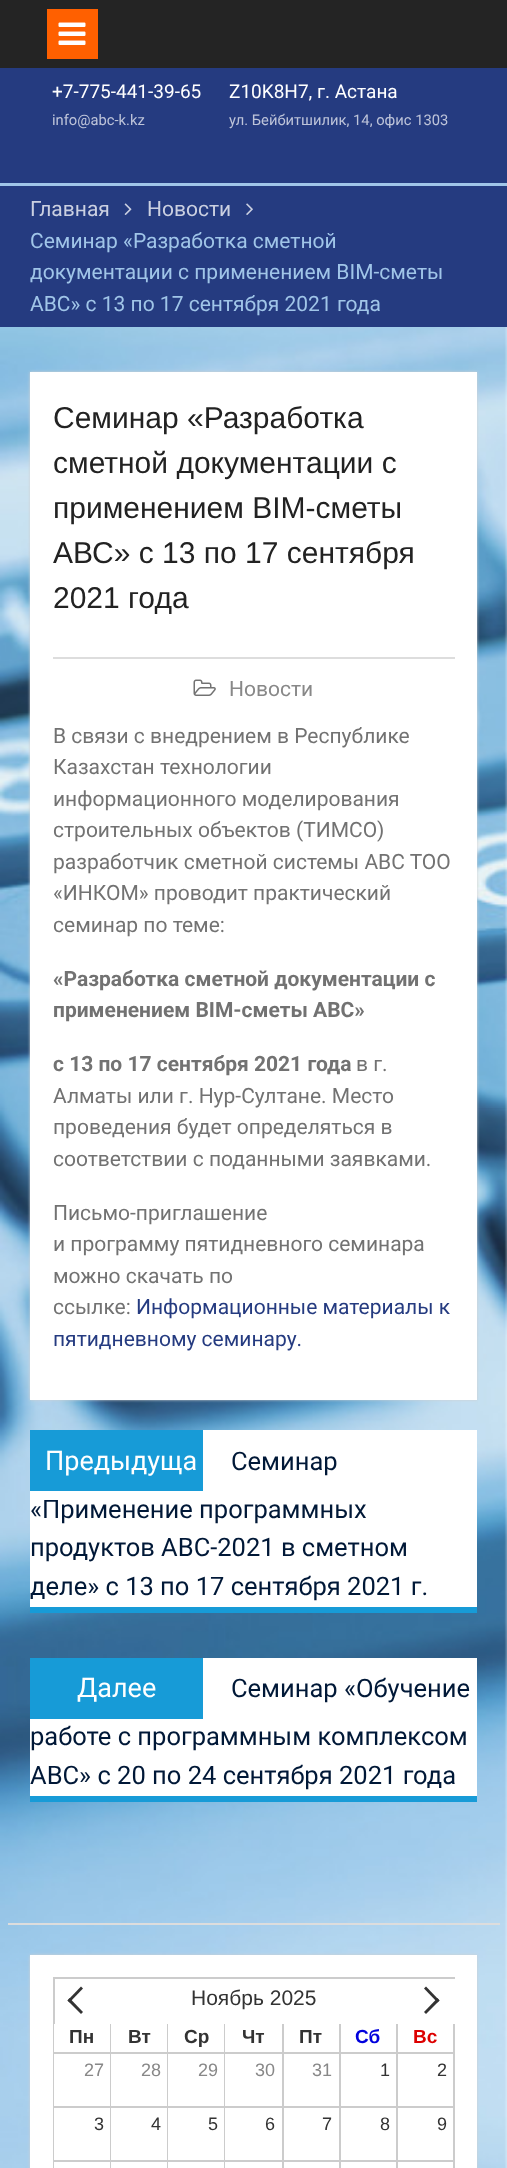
<svg xmlns="http://www.w3.org/2000/svg" width="507" height="2168" viewBox="0 0 507 2168">
  <defs>
    <filter id="blur1" x="-50%" y="-200%" width="200%" height="500%"><feGaussianBlur stdDeviation="1.5"/></filter>
  </defs>
  <rect width="100%" height="100%" fill="#ffffff"/>
  <image x="0" y="327" width="507" height="1841" href="img1.png"/>
  <rect x="0" y="0" width="507" height="68" fill="#242424"/>
  <rect x="47" y="9" width="51" height="50" fill="#ff6000"/>
  <image x="58" y="22" width="28" height="23" href="img2.png"/>
  <rect x="0" y="68" width="507" height="115" fill="#253b80"/>
  <text x="52" y="98" font-family="Roboto" font-size="19" fill="#ffffff">+7-775-441-39-65</text>
  <text x="52" y="125" font-family="Roboto" font-size="14.75" fill="#bec4d9">info@abc-k.kz</text>
  <text x="229" y="98" font-family="Roboto" font-size="19" fill="#ffffff">Z10K8H7, г. Астана</text>
  <text x="229" y="125" font-family="Roboto" font-size="14.75" fill="#bec4d9">ул. Бейбитшилик, 14, офис 1303</text>
  <rect x="0" y="186" width="507" height="141" fill="#253b80"/>
  <rect x="0" y="183" width="507" height="3" fill="#a0c5e8"/>
  <text x="30" y="216" font-family="Roboto" font-size="21" fill="#cbd0e1">Главная</text>
  <image x="124" y="203" width="8" height="12" href="img3.png"/>
  <text x="147" y="216" font-family="Roboto" font-size="21" fill="#cbd0e1">Новости</text>
  <image x="246" y="203" width="7" height="12" href="img4.png"/>
  <text x="30" y="248" font-family="Roboto" font-size="21" fill="#a0c5e8">Семинар «Разработка сметной</text>
  <text x="30" y="279" font-family="Roboto" font-size="21" fill="#a0c5e8">документации с применением BIM-сметы</text>
  <text x="30" y="311" font-family="Roboto" font-size="21" fill="#a0c5e8">АВС» с 13 по 17 сентября 2021 года</text>
  <rect x="8" y="1923" width="492" height="2" fill="#dddddd"/>
  <rect x="30" y="372" width="447" height="1028" fill="#cfcfcf" filter="url(#blur1)"/>
  <rect x="30" y="372" width="447" height="1028" fill="#ffffff"/>
  <text x="53" y="428" font-family="Liberation Sans" font-size="30" fill="#222222">Семинар «Разработка</text>
  <text x="53" y="473" font-family="Liberation Sans" font-size="30" fill="#222222">сметной документации с</text>
  <text x="53" y="518" font-family="Liberation Sans" font-size="30" fill="#222222">применением BIM-сметы</text>
  <text x="53" y="563" font-family="Liberation Sans" font-size="30" fill="#222222">АВС» с 13 по 17 сентября</text>
  <text x="53" y="608" font-family="Liberation Sans" font-size="30" fill="#222222">2021 года</text>
  <rect x="53" y="657" width="402" height="2" fill="#dddddd"/>
  <image x="193" y="679" width="23" height="17" href="img5.png"/>
  <text x="229" y="696" font-family="Roboto" font-size="21" fill="#888888">Новости</text>
  <text x="53" y="743" font-family="Roboto" font-size="21" fill="#727272">В связи с внедрением в Республике</text>
  <text x="53" y="774" font-family="Roboto" font-size="21" fill="#727272">Казахстан технологии</text>
  <text x="53" y="806" font-family="Roboto" font-size="21" fill="#727272">информационного моделирования</text>
  <text x="53" y="837" font-family="Roboto" font-size="21" fill="#727272">строительных объектов (ТИМСО)</text>
  <text x="53" y="869" font-family="Roboto" font-size="21" fill="#727272">разработчик сметной системы АВС ТОО</text>
  <text x="53" y="900" font-family="Roboto" font-size="21" fill="#727272">«ИНКОМ» проводит практический</text>
  <text x="53" y="932" font-family="Roboto" font-size="21" fill="#727272">семинар по теме:</text>
  <text x="53" y="986" font-family="Roboto" font-size="21" font-weight="bold" fill="#727272">«Разработка сметной документации с</text>
  <text x="53" y="1017" font-family="Roboto" font-size="21" font-weight="bold" fill="#727272">применением BIM-сметы АВС»</text>
  <text x="53" y="1071" font-family="Roboto" font-size="21" font-weight="bold" fill="#727272">с 13 по 17 сентября 2021 года</text>
  <text x="356" y="1071" font-family="Roboto" font-size="21" fill="#727272">в г.</text>
  <text x="53" y="1103" font-family="Roboto" font-size="21" fill="#727272">Алматы или г. Нур-Султане. Место</text>
  <text x="53" y="1134" font-family="Roboto" font-size="21" fill="#727272">проведения будет определяться в</text>
  <text x="53" y="1166" font-family="Roboto" font-size="21" fill="#727272">соответствии с поданными заявками.</text>
  <text x="53" y="1220" font-family="Roboto" font-size="21" fill="#727272">Письмо-приглашение</text>
  <text x="53" y="1251" font-family="Roboto" font-size="21" fill="#727272">и программу пятидневного семинара</text>
  <text x="53" y="1283" font-family="Roboto" font-size="21" fill="#727272">можно скачать по</text>
  <text x="53" y="1314" font-family="Roboto" font-size="21" fill="#727272">ссылке:</text>
  <text x="136" y="1314" font-family="Roboto" font-size="21" fill="#253b80">Информационные материалы к</text>
  <text x="53" y="1346" font-family="Roboto" font-size="21" fill="#253b80">пятидневному семинару.</text>
  <rect x="30" y="1607" width="447" height="6" fill="#179bd7"/>
  <rect x="30" y="1430" width="447" height="177" fill="#ffffff"/>
  <rect x="30" y="1430" width="173" height="61" fill="#179bd7"/>
  <text x="45" y="1470" font-family="Roboto" font-size="27" fill="#ffffff">Предыдуща</text>
  <text x="231" y="1470" font-family="Roboto" font-size="25.5" fill="#001837">Семинар</text>
  <text x="30" y="1518" font-family="Roboto" font-size="25.5" fill="#001837">«Применение программных</text>
  <text x="30" y="1556" font-family="Roboto" font-size="25.5" fill="#001837">продуктов АВС-2021 в сметном</text>
  <text x="30" y="1595" font-family="Roboto" font-size="25.5" fill="#001837">деле» с 13 по 17 сентября 2021 г.</text>
  <rect x="30" y="1796" width="447" height="6" fill="#179bd7"/>
  <rect x="30" y="1658" width="447" height="138" fill="#ffffff"/>
  <rect x="30" y="1658" width="173" height="61" fill="#179bd7"/>
  <text x="77" y="1697" font-family="Roboto" font-size="27" fill="#ffffff">Далее</text>
  <text x="231" y="1697" font-family="Roboto" font-size="25.5" fill="#001837">Семинар «Обучение</text>
  <text x="30" y="1745" font-family="Roboto" font-size="25.5" fill="#001837">работе с программным комплексом</text>
  <text x="30" y="1784" font-family="Roboto" font-size="25.5" fill="#001837">АВС» с 20 по 24 сентября 2021 года</text>
  <rect x="30" y="1955" width="447" height="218" fill="#cfcfcf" filter="url(#blur1)"/>
  <rect x="30" y="1955" width="447" height="213" fill="#ffffff"/>
  <rect x="53" y="1977" width="402" height="2" fill="#cccccc"/>
  <rect x="53" y="1977" width="2" height="191" fill="#cccccc"/>
  <path d="M69.5 1998L83 2012L81 2014L67.5 2000.5Z" fill="#333333"/>
  <path d="M81 1986.5L83 1988.5L69.5 2002.5L67.5 2000.5Z" fill="#333333"/>
  <text x="191" y="2005" font-family="Liberation Sans" font-size="21" fill="#333333">Ноябрь 2025</text>
  <path d="M426 1986.5L439.5 2000.5L437.5 2002.5L424 1988.5Z" fill="#333333"/>
  <path d="M437.5 1998L439.5 2000.5L426 2014L424 2012Z" fill="#333333"/>
  <rect x="54" y="2024" width="1" height="28" fill="#ffffff"/>
  <rect x="110" y="2024" width="1" height="28" fill="#cccccc"/>
  <text x="69" y="2043" font-family="Liberation Sans" font-size="19" font-weight="bold" fill="#333333">Пн</text>
  <rect x="167" y="2024" width="1" height="28" fill="#cccccc"/>
  <text x="128" y="2043" font-family="Liberation Sans" font-size="19" font-weight="bold" fill="#333333">Вт</text>
  <rect x="224" y="2024" width="1" height="28" fill="#cccccc"/>
  <text x="184" y="2043" font-family="Liberation Sans" font-size="19" font-weight="bold" fill="#333333">Ср</text>
  <rect x="282" y="2024" width="2" height="28" fill="#cccccc"/>
  <text x="242" y="2043" font-family="Liberation Sans" font-size="19" font-weight="bold" fill="#333333">Чт</text>
  <rect x="339" y="2024" width="2" height="28" fill="#cccccc"/>
  <text x="299" y="2043" font-family="Liberation Sans" font-size="19" font-weight="bold" fill="#333333">Пт</text>
  <rect x="396" y="2024" width="2" height="28" fill="#cccccc"/>
  <text x="355" y="2043" font-family="Liberation Sans" font-size="19" font-weight="bold" fill="#0000dd">Сб</text>
  <rect x="453" y="2024" width="2" height="28" fill="#cccccc"/>
  <text x="413" y="2043" font-family="Liberation Sans" font-size="19" font-weight="bold" fill="#dd0000">Вс</text>
  <rect x="54" y="2054" width="1" height="52" fill="#ffffff"/>
  <rect x="54" y="2052" width="401" height="2" fill="#cccccc"/>
  <rect x="110" y="2052" width="1" height="54" fill="#cccccc"/>
  <text x="84" y="2076" font-family="Liberation Sans" font-size="18" fill="#888888">27</text>
  <rect x="167" y="2052" width="1" height="54" fill="#cccccc"/>
  <text x="141" y="2076" font-family="Liberation Sans" font-size="18" fill="#888888">28</text>
  <rect x="224" y="2052" width="1" height="54" fill="#cccccc"/>
  <text x="198" y="2076" font-family="Liberation Sans" font-size="18" fill="#888888">29</text>
  <rect x="282" y="2052" width="2" height="54" fill="#cccccc"/>
  <text x="255" y="2076" font-family="Liberation Sans" font-size="18" fill="#888888">30</text>
  <rect x="339" y="2052" width="2" height="54" fill="#cccccc"/>
  <text x="312" y="2076" font-family="Liberation Sans" font-size="18" fill="#888888">31</text>
  <rect x="396" y="2052" width="2" height="54" fill="#cccccc"/>
  <text x="380" y="2076" font-family="Liberation Sans" font-size="18" fill="#333333">1</text>
  <rect x="453" y="2052" width="2" height="54" fill="#cccccc"/>
  <text x="437" y="2076" font-family="Liberation Sans" font-size="18" fill="#333333">2</text>
  <rect x="54" y="2108" width="1" height="52" fill="#ffffff"/>
  <rect x="54" y="2106" width="401" height="2" fill="#cccccc"/>
  <rect x="110" y="2106" width="1" height="54" fill="#cccccc"/>
  <text x="94" y="2130" font-family="Liberation Sans" font-size="18" fill="#333333">3</text>
  <rect x="167" y="2106" width="1" height="54" fill="#cccccc"/>
  <text x="151" y="2130" font-family="Liberation Sans" font-size="18" fill="#333333">4</text>
  <rect x="224" y="2106" width="1" height="54" fill="#cccccc"/>
  <text x="208" y="2130" font-family="Liberation Sans" font-size="18" fill="#333333">5</text>
  <rect x="282" y="2106" width="2" height="54" fill="#cccccc"/>
  <text x="265" y="2130" font-family="Liberation Sans" font-size="18" fill="#333333">6</text>
  <rect x="339" y="2106" width="2" height="54" fill="#cccccc"/>
  <text x="322" y="2130" font-family="Liberation Sans" font-size="18" fill="#333333">7</text>
  <rect x="396" y="2106" width="2" height="54" fill="#cccccc"/>
  <text x="380" y="2130" font-family="Liberation Sans" font-size="18" fill="#333333">8</text>
  <rect x="453" y="2106" width="2" height="54" fill="#cccccc"/>
  <text x="437" y="2130" font-family="Liberation Sans" font-size="18" fill="#333333">9</text>
  <rect x="54" y="2162" width="1" height="6" fill="#ffffff"/>
  <rect x="54" y="2160" width="401" height="2" fill="#cccccc"/>
  <rect x="110" y="2160" width="1" height="8" fill="#cccccc"/>
  <rect x="167" y="2160" width="1" height="8" fill="#cccccc"/>
  <rect x="224" y="2160" width="1" height="8" fill="#cccccc"/>
  <rect x="282" y="2160" width="2" height="8" fill="#cccccc"/>
  <rect x="339" y="2160" width="2" height="8" fill="#cccccc"/>
  <rect x="396" y="2160" width="2" height="8" fill="#cccccc"/>
  <rect x="453" y="2160" width="2" height="8" fill="#cccccc"/>
</svg>
